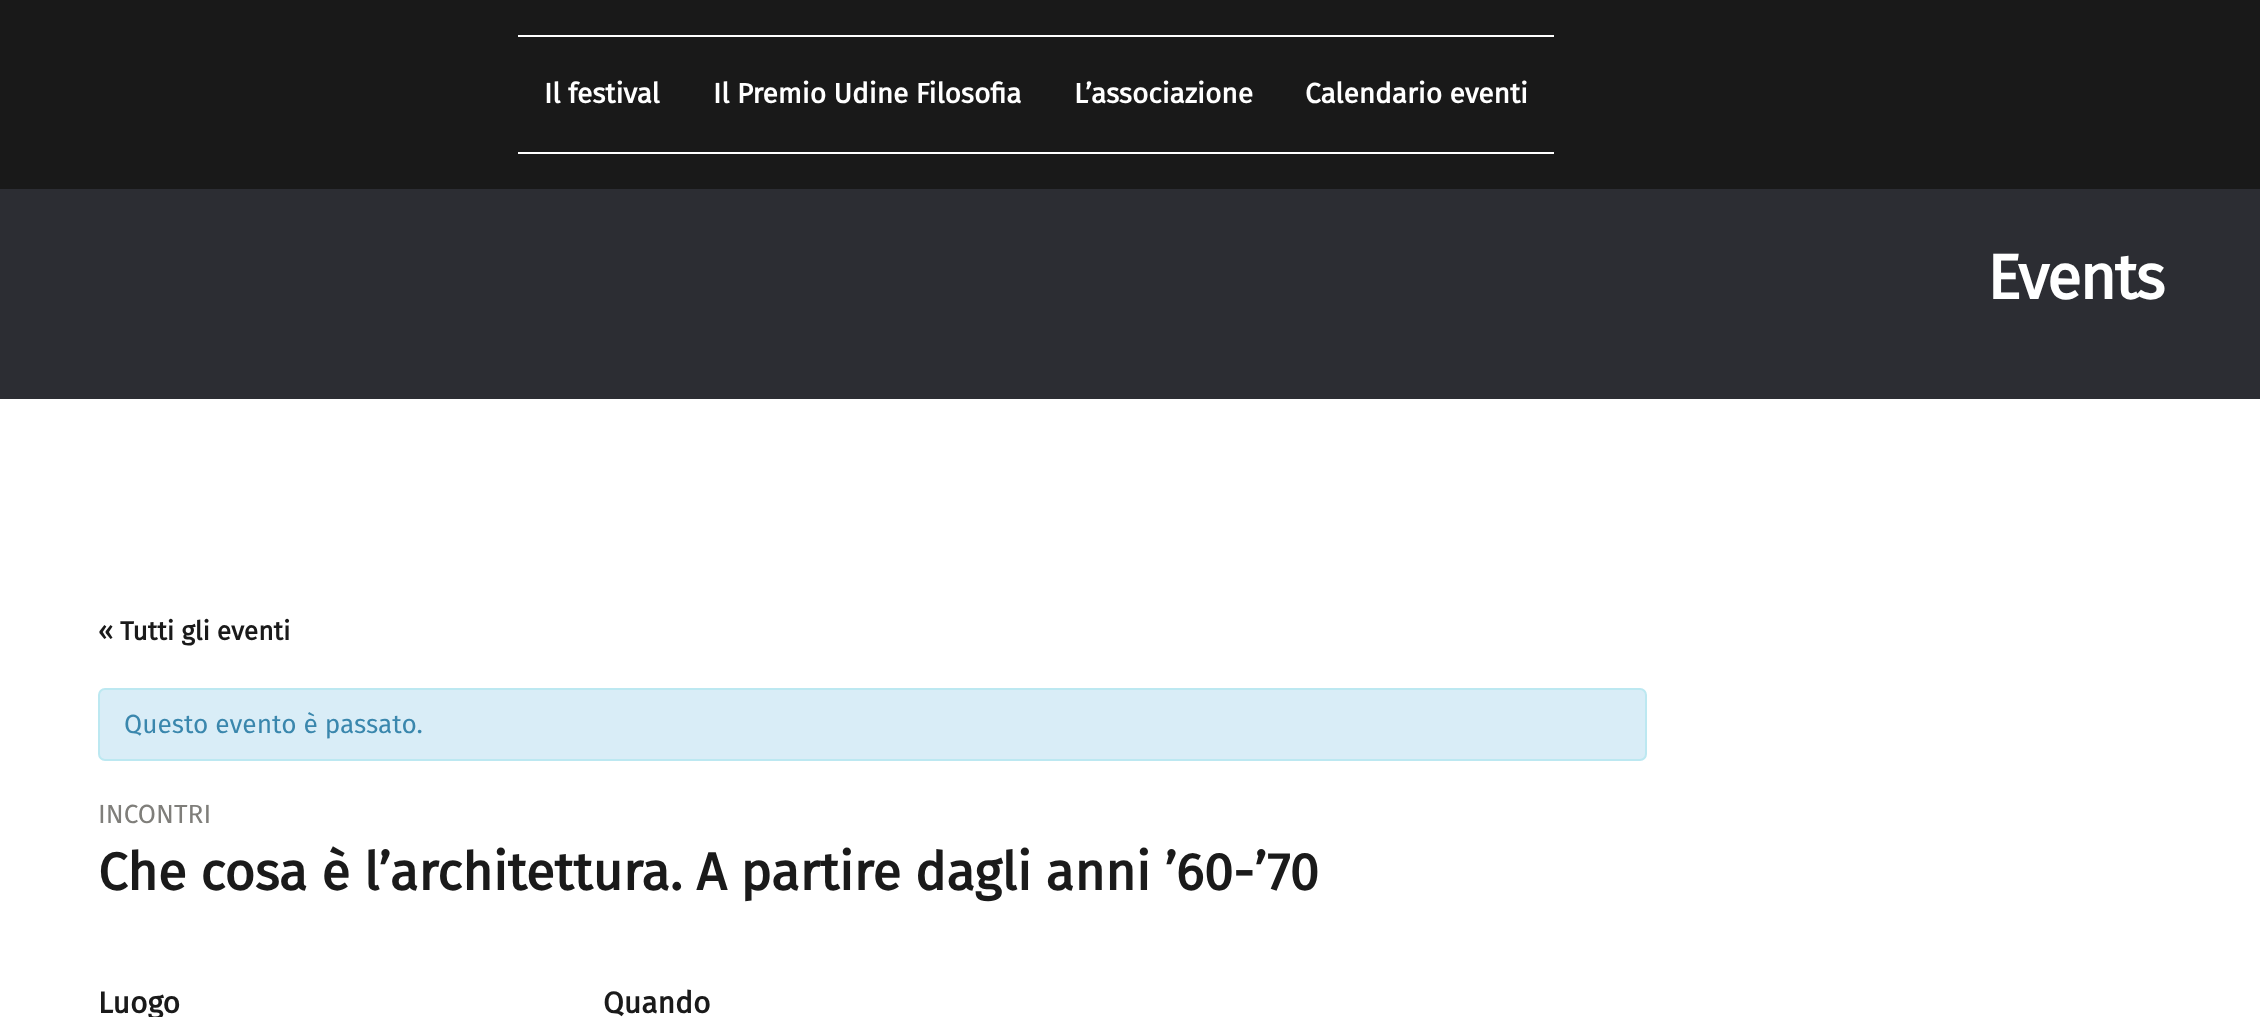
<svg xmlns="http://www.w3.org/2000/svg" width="2260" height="1017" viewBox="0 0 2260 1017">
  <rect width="100%" height="100%" fill="#ffffff"/>
  <rect x="0" y="189" width="2260" height="210" fill="#2c2d33"/>
  <rect x="0" y="0" width="2260" height="189" fill="#191919"/>
  <rect x="518" y="35" width="1036" height="2" fill="#ffffff"/>
  <rect x="518" y="152" width="1036" height="2" fill="#ffffff"/>
  <text x="544" y="103" font-family="Fira Sans" font-size="28" font-weight="bold" fill="#ffffff">Il festival</text>
  <text x="713" y="103" font-family="Fira Sans" font-size="28" font-weight="bold" fill="#ffffff">Il Premio Udine Filosofia</text>
  <text x="1074" y="103" font-family="Fira Sans" font-size="28" font-weight="bold" fill="#ffffff">L’associazione</text>
  <text x="1305" y="103" font-family="Fira Sans" font-size="28" font-weight="bold" fill="#ffffff">Calendario eventi</text>
  <text x="1987" y="299" font-family="Fira Sans" font-size="63" font-weight="bold" letter-spacing="-1.75" fill="#ffffff">Events</text>
  <text x="98" y="640" font-family="Fira Sans" font-size="26.25" font-weight="bold" fill="#1a1a1a">« Tutti gli eventi</text>
  <rect x="99" y="689" width="1547" height="71" rx="6" fill="#d9edf7" stroke="#bce8f1" stroke-width="2"/>
  <text x="124" y="733" font-family="Fira Sans" font-size="26.25" fill="#3a87ad">Questo evento è passato.</text>
  <text x="98" y="823" font-family="Fira Sans" font-size="26.25" fill="#7f7e7a">INCONTRI</text>
  <text x="98" y="890" font-family="Fira Sans" font-size="52.5" font-weight="bold" fill="#1a1a1a">Che cosa è l’architettura. A partire dagli anni ’60-’70</text>
  <text x="98" y="1013" font-family="Fira Sans" font-size="30" font-weight="bold" fill="#1a1a1a">Luogo</text>
  <text x="603" y="1013" font-family="Fira Sans" font-size="30" font-weight="bold" fill="#1a1a1a">Quando</text>
</svg>
